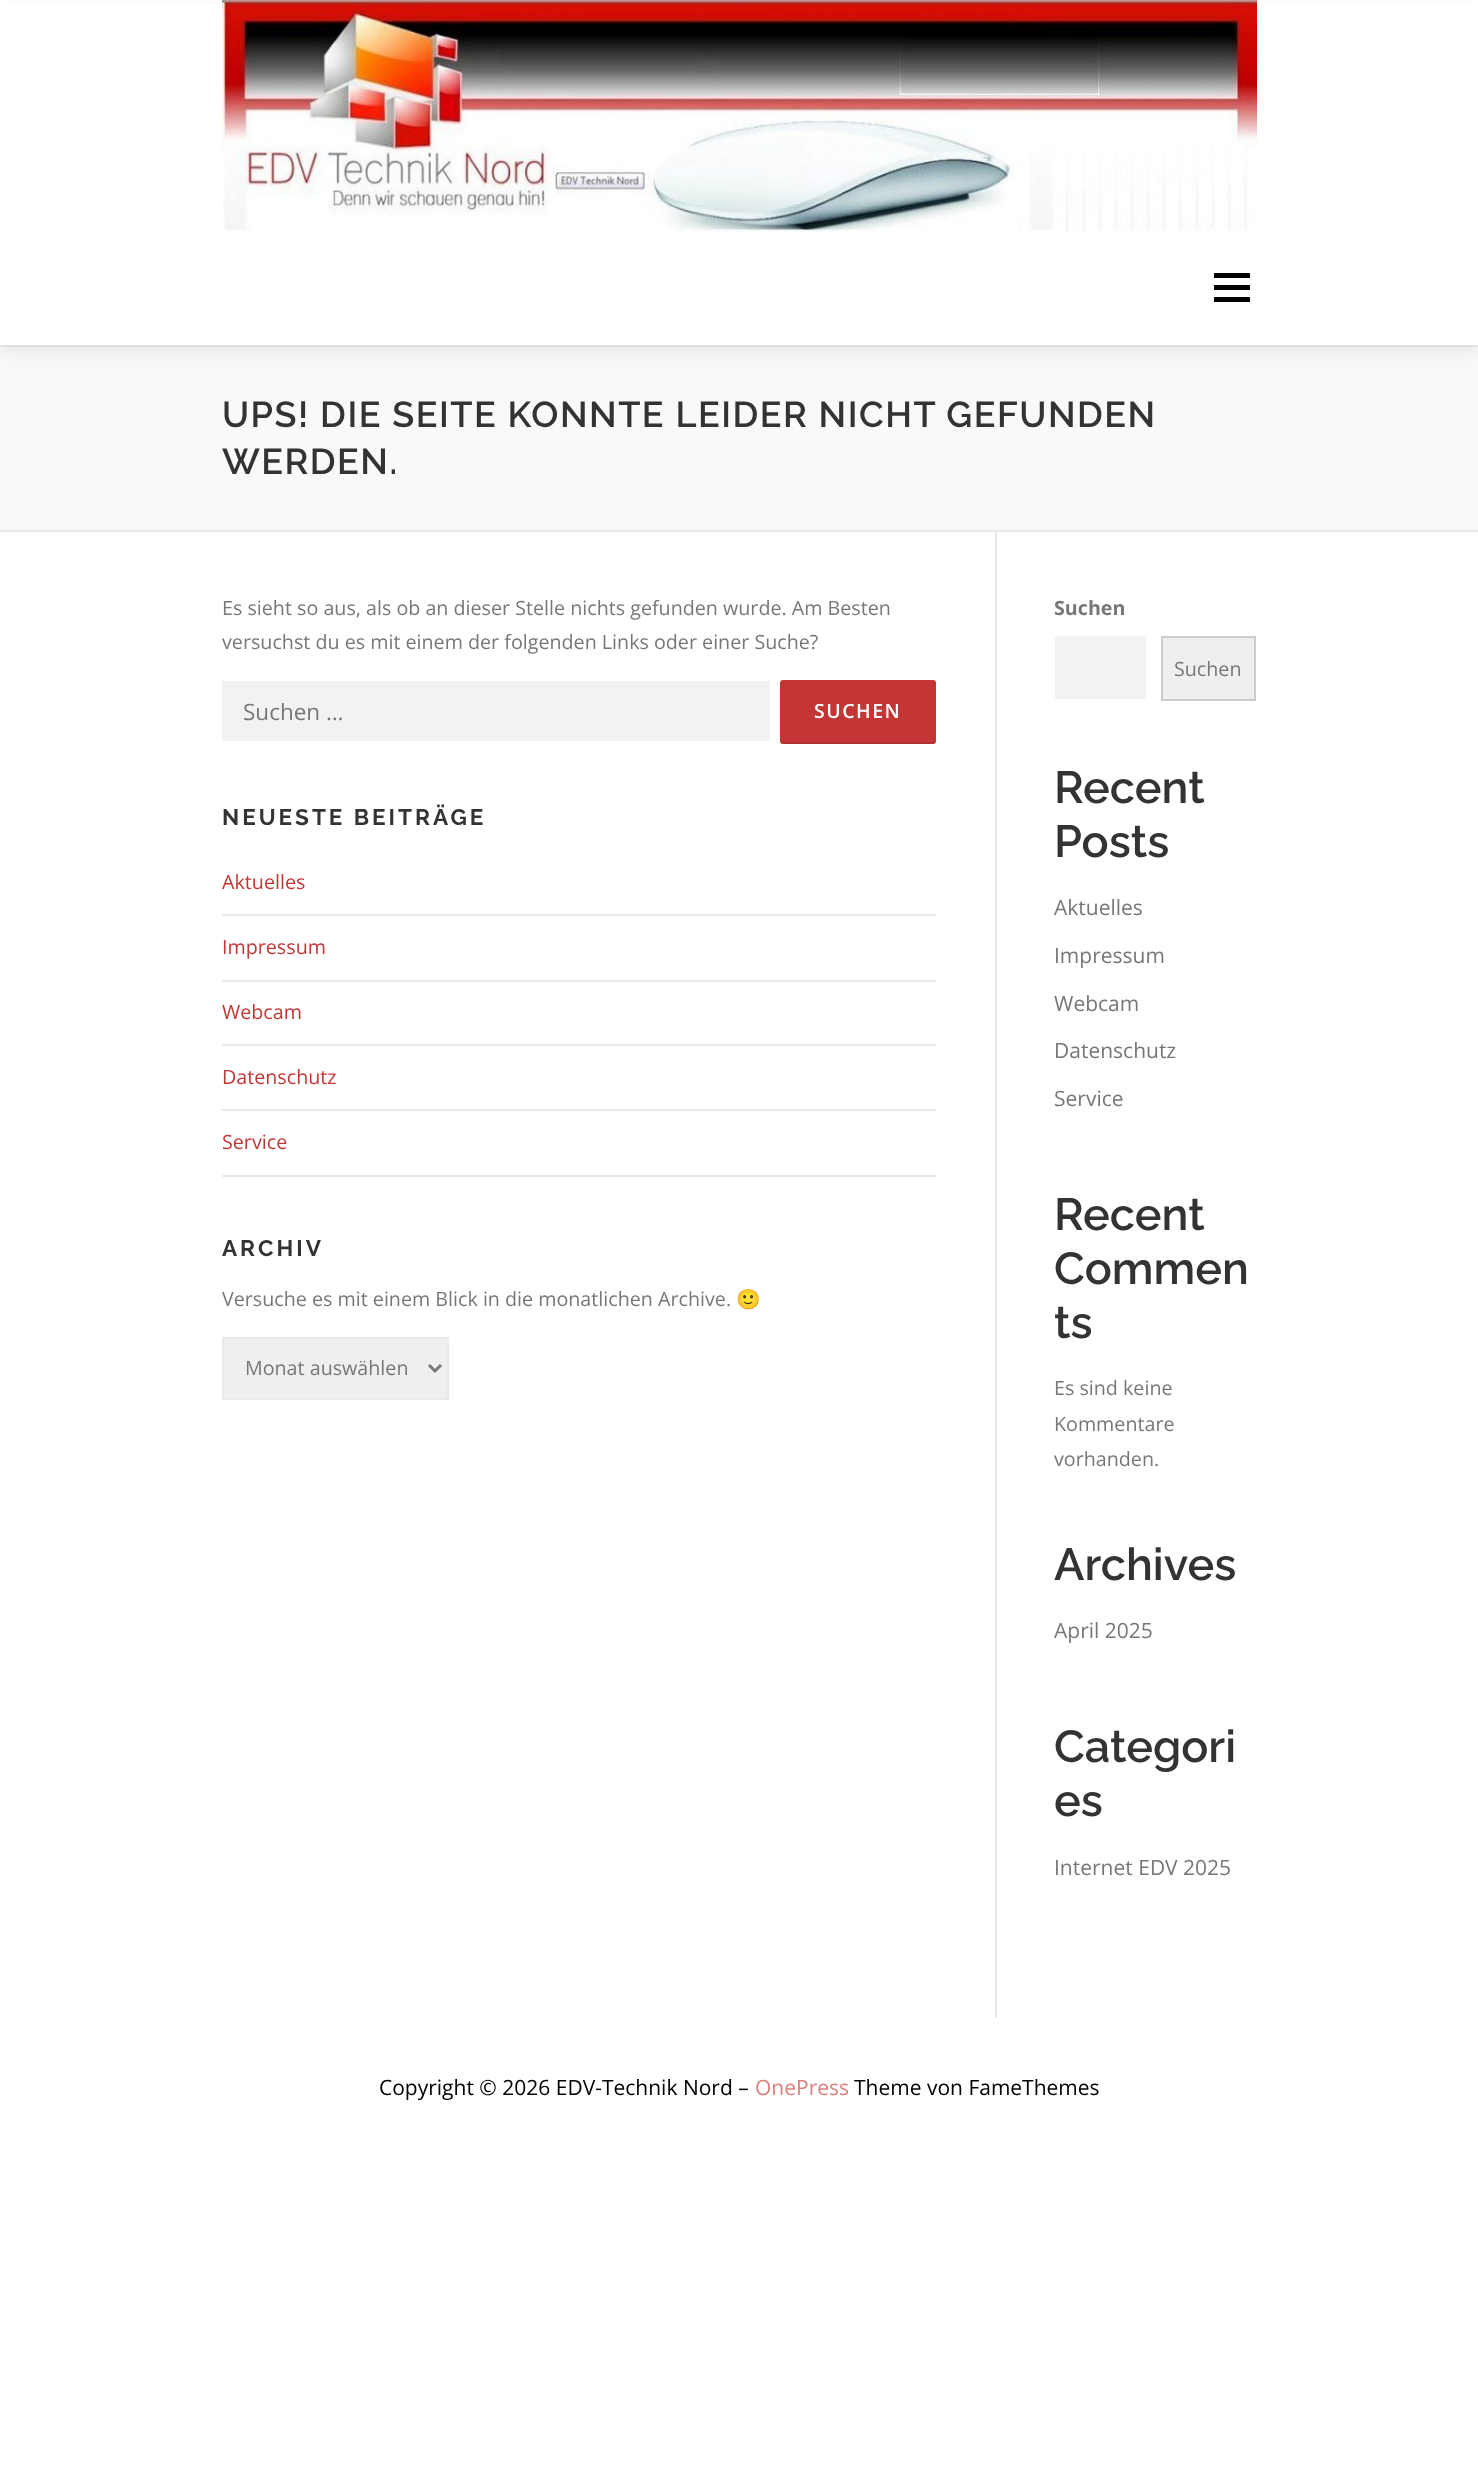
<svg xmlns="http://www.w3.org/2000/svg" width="1478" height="2477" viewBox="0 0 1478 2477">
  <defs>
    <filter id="blur1" x="-50%" y="-200%" width="200%" height="500%"><feGaussianBlur stdDeviation="7.5"/></filter>
  </defs>
  <rect width="100%" height="100%" fill="#ffffff"/>
  <rect x="0" y="347" width="1478" height="183" fill="#f8f9f9"/>
  <rect x="0" y="345" width="1478" height="2" fill="#e9e9e9"/>
  <rect x="0" y="8" width="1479" height="345" fill="#323232" fill-opacity="0.06" filter="url(#blur1)"/>
  <rect x="0" y="2" width="1478" height="343" fill="#ffffff"/>
  <image x="222" y="0" width="1035" height="233" href="img1.png"/>
  <rect x="1214" y="285" width="36" height="5" fill="#000000"/>
  <rect x="1214" y="273" width="36" height="5" fill="#000000"/>
  <rect x="1214" y="297" width="36" height="5" fill="#000000"/>
  <rect x="0" y="530" width="1478" height="2" fill="#e9e9e9"/>
  <text x="222" y="427" font-family="Raleway" font-size="36" font-weight="600" letter-spacing="1.5" fill="#333333">UPS! DIE SEITE KONNTE LEIDER NICHT GEFUNDEN</text>
  <text x="222" y="474" font-family="Raleway" font-size="36" font-weight="600" letter-spacing="1.5" fill="#333333">WERDEN.</text>
  <text x="222" y="615" font-family="Open Sans" font-size="19.7" fill="#777777">Es sieht so aus, als ob an dieser Stelle nichts gefunden wurde. Am Besten</text>
  <text x="222" y="649" font-family="Open Sans" font-size="19.7" fill="#777777">versuchst du es mit einem der folgenden Links oder einer Suche?</text>
  <rect x="222" y="681" width="548" height="60" fill="#f2f2f2"/>
  <text x="243" y="720" font-family="Open Sans" font-size="22.5" fill="#777777">Suchen …</text>
  <rect x="780" y="680" width="156" height="64" rx="3" fill="#c43636"/>
  <path d="M780 740C780 742 781 744 783 744H934C936 744 936 742 936 740C936 741 935 742 933 742H783C781 742 780 741 780 740Z" fill="#000000" fill-opacity="0.1"/>
  <text x="814" y="718" font-family="Open Sans" font-size="19.5" font-weight="600" letter-spacing="1.5" fill="#ffffff">SUCHEN</text>
  <text x="222" y="825" font-family="Raleway" font-size="22.5" font-weight="bold" letter-spacing="3" fill="#333333">NEUESTE BEITRÄGE</text>
  <rect x="222" y="914" width="714" height="2" fill="#e9e9e9"/>
  <text x="222" y="889" font-family="Open Sans" font-size="19.7" fill="#c43636">Aktuelles</text>
  <rect x="222" y="980" width="714" height="2" fill="#e9e9e9"/>
  <text x="222" y="954" font-family="Open Sans" font-size="19.7" fill="#c43636">Impressum</text>
  <rect x="222" y="1044" width="714" height="2" fill="#e9e9e9"/>
  <text x="222" y="1019" font-family="Open Sans" font-size="19.7" fill="#c43636">Webcam</text>
  <rect x="222" y="1109" width="714" height="2" fill="#e9e9e9"/>
  <text x="222" y="1084" font-family="Open Sans" font-size="19.7" fill="#c43636">Datenschutz</text>
  <rect x="222" y="1175" width="714" height="2" fill="#e9e9e9"/>
  <text x="222" y="1149" font-family="Open Sans" font-size="19.7" fill="#c43636">Service</text>
  <text x="222" y="1256" font-family="Raleway" font-size="22.5" font-weight="bold" letter-spacing="3" fill="#333333">ARCHIV</text>
  <text x="222" y="1306" font-family="Open Sans" font-size="19.7" fill="#777777">Versuche es mit einem Blick in die monatlichen Archive.</text>
  <text x="736" y="1306" font-family="Noto Color Emoji" font-size="19.7" fill="#777777">🙂</text>
  <rect x="223" y="1338" width="225" height="61" fill="#efefef" stroke="#e9e9e9" stroke-width="2"/>
  <path d="M429 1365L435 1371L441 1365" fill="none" stroke="#777777" stroke-width="3"/>
  <text x="245" y="1375" font-family="Open Sans" font-size="19.7" fill="#777777">Monat auswählen</text>
  <rect x="995" y="531" width="2" height="1487" fill="#e9e9e9"/>
  <text x="1054" y="615" font-family="Open Sans" font-size="19.7" font-weight="bold" fill="#777777">Suchen</text>
  <rect x="1055" y="636" width="91" height="63" fill="#f2f2f2"/>
  <rect x="1162" y="637" width="93" height="63" fill="#efefef" stroke="#cccccc" stroke-width="2"/>
  <text x="1174" y="676" font-family="Open Sans" font-size="19.7" fill="#777777">Suchen</text>
  <text x="1054" y="803" font-family="Raleway" font-size="45" font-weight="600" fill="#333333">Recent</text>
  <text x="1054" y="857" font-family="Raleway" font-size="45" font-weight="600" fill="#333333">Posts</text>
  <text x="1054" y="915" font-family="Open Sans" font-size="21" fill="#777777">Aktuelles</text>
  <text x="1054" y="963" font-family="Open Sans" font-size="21" fill="#777777">Impressum</text>
  <text x="1054" y="1011" font-family="Open Sans" font-size="21" fill="#777777">Webcam</text>
  <text x="1054" y="1058" font-family="Open Sans" font-size="21" fill="#777777">Datenschutz</text>
  <text x="1054" y="1106" font-family="Open Sans" font-size="21" fill="#777777">Service</text>
  <text x="1054" y="1230" font-family="Raleway" font-size="45" font-weight="600" fill="#333333">Recent</text>
  <text x="1054" y="1284" font-family="Raleway" font-size="45" font-weight="600" fill="#333333">Commen</text>
  <text x="1054" y="1338" font-family="Raleway" font-size="45" font-weight="600" fill="#333333">ts</text>
  <text x="1054" y="1395" font-family="Open Sans" font-size="19.7" fill="#777777">Es sind keine</text>
  <text x="1054" y="1431" font-family="Open Sans" font-size="19.7" fill="#777777">Kommentare</text>
  <text x="1054" y="1466" font-family="Open Sans" font-size="19.7" fill="#777777">vorhanden.</text>
  <text x="1054" y="1580" font-family="Raleway" font-size="45" font-weight="600" fill="#333333">Archives</text>
  <text x="1054" y="1638" font-family="Open Sans" font-size="21" fill="#777777">April 2025</text>
  <text x="1054" y="1762" font-family="Raleway" font-size="45" font-weight="600" fill="#333333">Categori</text>
  <text x="1054" y="1816" font-family="Raleway" font-size="45" font-weight="600" fill="#333333">es</text>
  <text x="1054" y="1875" font-family="Open Sans" font-size="21" fill="#777777">Internet EDV 2025</text>
  <text x="379" y="2095" font-family="Open Sans" font-size="21" fill="#000000">Copyright © 2026 EDV-Technik Nord –</text>
  <text x="755" y="2095" font-family="Open Sans" font-size="21" fill="#dd7e7e">OnePress</text>
  <text x="854" y="2095" font-family="Open Sans" font-size="21" fill="#000000">Theme von FameThemes</text>
</svg>
